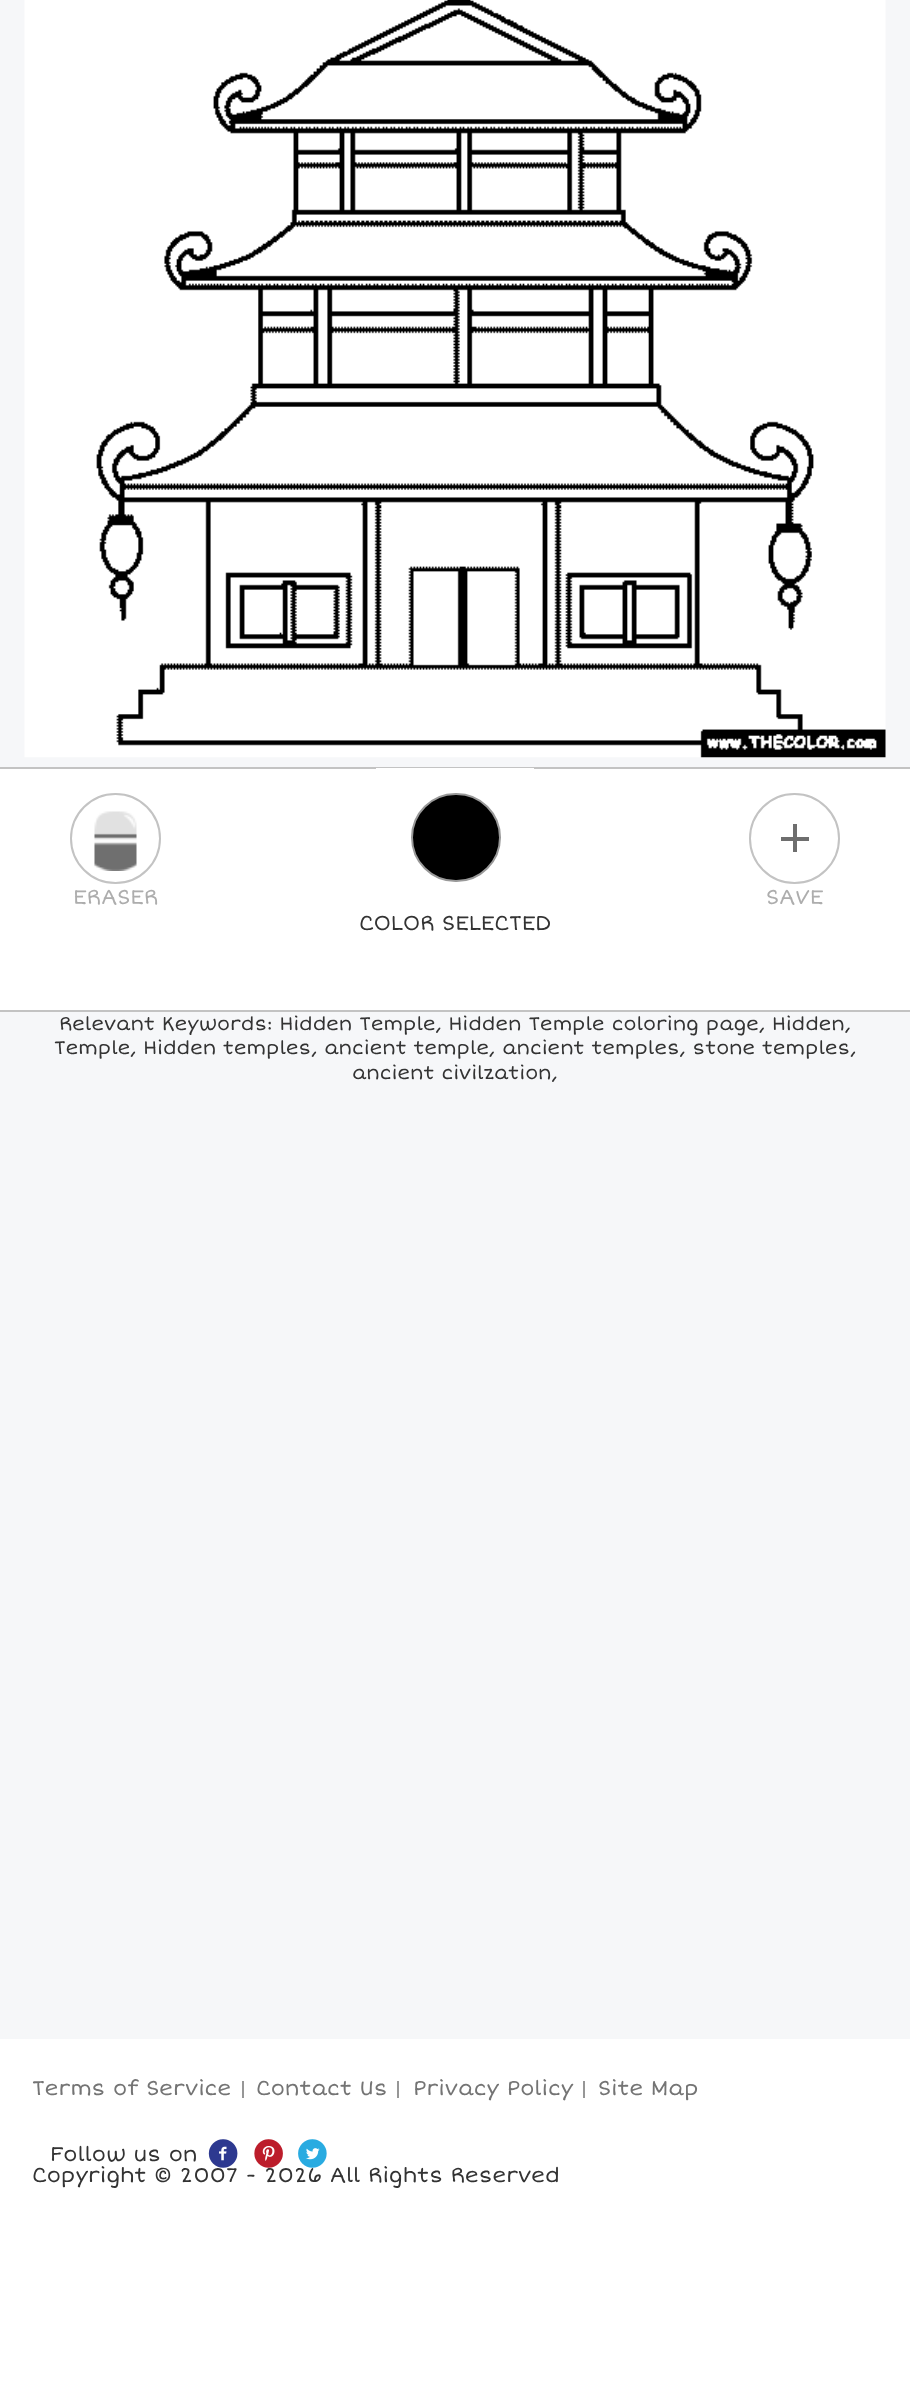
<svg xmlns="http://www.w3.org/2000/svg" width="910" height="2408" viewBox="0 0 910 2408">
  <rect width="100%" height="100%" fill="#ffffff"/>
  <rect x="0" y="0" width="910" height="2039" fill="#f6f7f9"/>
  <image x="24" y="0" width="862" height="758" href="img1.png"/>
  <rect x="-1" y="768" width="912" height="243" fill="#ffffff" stroke="#c3c3c3" stroke-width="2"/>
  <rect x="376" y="768" width="158" height="1" fill="#ffffff"/>
  <rect x="412" y="794" width="88" height="87" rx="43.5" fill="#000000" stroke="#999999" stroke-width="2"/>
  <circle cx="115.5" cy="838.5" r="44.5" fill="none" stroke="#c3c3c3" stroke-width="2"/>
  <image x="94" y="811" width="43" height="60" href="img2.png"/>
  <text x="73" y="904" font-family="Short Stack" font-size="21" fill="#adadad">ERASER</text>
  <circle cx="794.5" cy="838.5" r="44.5" fill="none" stroke="#c3c3c3" stroke-width="2"/>
  <rect x="793" y="824" width="4" height="28" fill="#6e6e6e"/>
  <rect x="781" y="837" width="28" height="4" fill="#6e6e6e"/>
  <text x="766" y="904" font-family="Short Stack" font-size="21" fill="#adadad">SAVE</text>
  <text x="359" y="930" font-family="Short Stack" font-size="21" fill="#333333">COLOR SELECTED</text>
  <text x="59" y="1030" font-family="Short Stack" font-size="19.25" fill="#333333">Relevant Keywords: Hidden Temple, Hidden Temple coloring page, Hidden,</text>
  <text x="54" y="1054" font-family="Short Stack" font-size="19.25" fill="#333333">Temple, Hidden temples, ancient temple, ancient temples, stone temples,</text>
  <text x="352" y="1079" font-family="Short Stack" font-size="19.25" fill="#333333">ancient civilzation,</text>
  <text x="32" y="2095" font-family="Short Stack" font-size="21" fill="#747474">Terms of Service</text>
  <rect x="242" y="2081" width="2" height="17" fill="#979797"/>
  <text x="256" y="2095" font-family="Short Stack" font-size="21" fill="#747474">Contact Us</text>
  <rect x="397" y="2081" width="2" height="17" fill="#979797"/>
  <text x="413" y="2095" font-family="Short Stack" font-size="21" fill="#747474">Privacy Policy</text>
  <rect x="583" y="2081" width="2" height="17" fill="#979797"/>
  <text x="598" y="2095" font-family="Short Stack" font-size="21" fill="#747474">Site Map</text>
  <image x="208" y="2139" width="30" height="29" href="img3.png"/>
  <image x="254" y="2139" width="29" height="29" href="img4.png"/>
  <image x="298" y="2139" width="29" height="29" href="img5.png"/>
  <text x="32" y="2182" font-family="Short Stack" font-size="21" fill="#333333">Copyright © 2007 - 2026 All Rights Reserved</text>
  <text x="50" y="2161" font-family="Short Stack" font-size="21" fill="#333333">Follow us on</text>
</svg>
